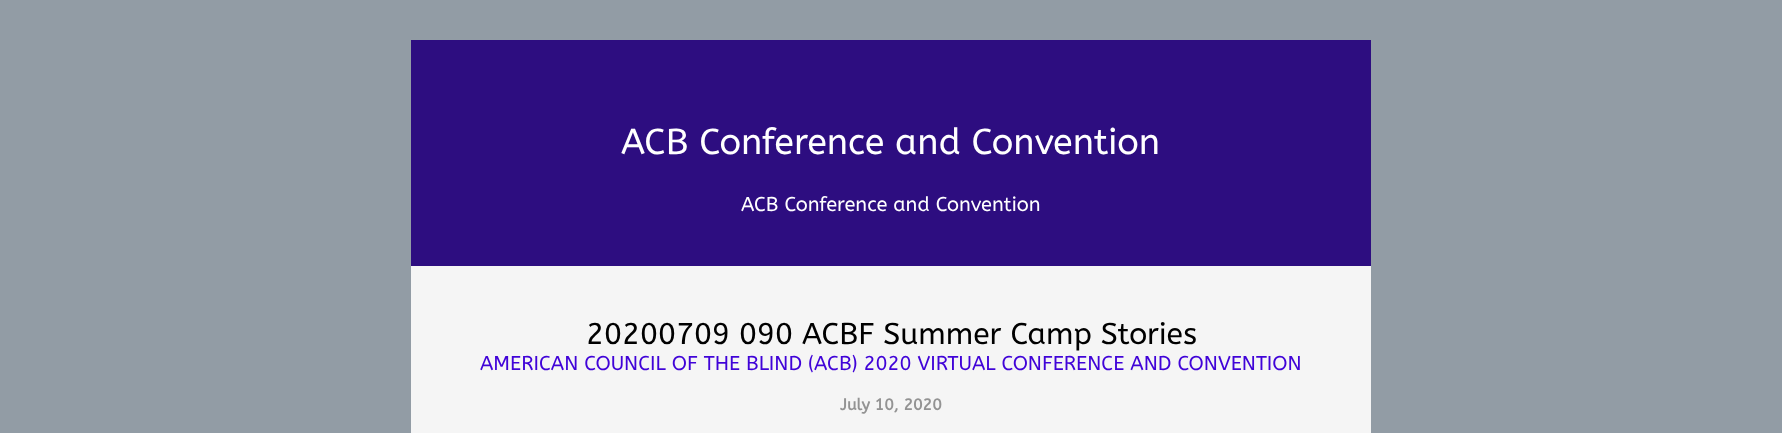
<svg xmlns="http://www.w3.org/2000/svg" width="1782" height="433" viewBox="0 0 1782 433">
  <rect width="100%" height="100%" fill="#929ca5"/>
  <rect x="411" y="40" width="960" height="226" fill="#2d0d80"/>
  <text x="621" y="154" font-family="ABeeZee" font-size="36" fill="#ffffff">ACB Conference and Convention</text>
  <text x="741" y="211" font-family="ABeeZee" font-size="20" fill="#ffffff">ACB Conference and Convention</text>
  <rect x="411" y="266" width="960" height="167" fill="#f5f5f5"/>
  <text x="586" y="344" font-family="ABeeZee" font-size="30" fill="#000000">20200709 090 ACBF Summer Camp Stories</text>
  <text x="480" y="370" font-family="ABeeZee" font-size="20" fill="#4003d8">AMERICAN COUNCIL OF THE BLIND (ACB) 2020 VIRTUAL CONFERENCE AND CONVENTION</text>
  <text x="840" y="410" font-family="ABeeZee" font-size="16" font-weight="bold" fill="#939393">July 10, 2020</text>
</svg>
